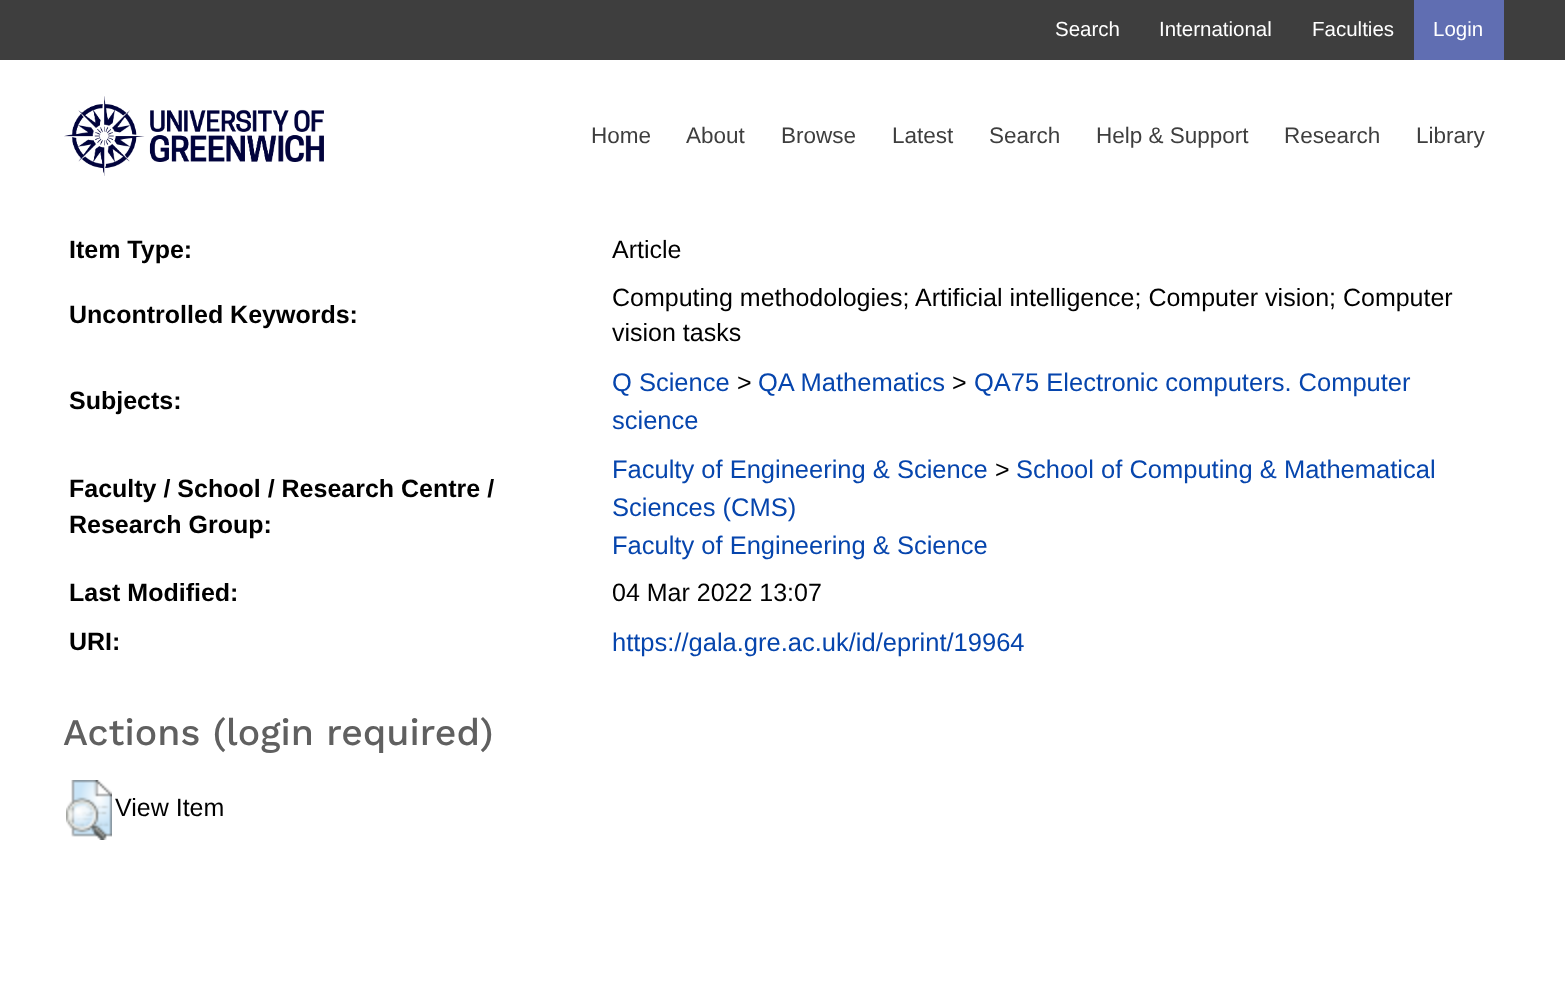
<svg xmlns="http://www.w3.org/2000/svg" width="1565" height="1007" viewBox="0 0 1565 1007">
  <rect width="100%" height="100%" fill="#ffffff"/>
  <rect x="0" y="0" width="1565" height="60" fill="#3e3e3e"/>
  <text x="1055" y="36" font-family="Liberation Sans" font-size="20.5" fill="#ffffff">Search</text>
  <text x="1159" y="36" font-family="Liberation Sans" font-size="20.5" fill="#ffffff">International</text>
  <text x="1312" y="36" font-family="Liberation Sans" font-size="20.5" fill="#ffffff">Faculties</text>
  <rect x="1414" y="0" width="90" height="60" fill="#606eb2"/>
  <text x="1433" y="36" font-family="Liberation Sans" font-size="20.5" fill="#ffffff">Login</text>
  <image x="64" y="96" width="260" height="80" href="img1.png"/>
  <text x="591" y="143" font-family="Liberation Sans" font-size="22.5" fill="#3e3e3e">Home</text>
  <text x="686" y="143" font-family="Liberation Sans" font-size="22.5" fill="#3e3e3e">About</text>
  <text x="781" y="143" font-family="Liberation Sans" font-size="22.5" fill="#3e3e3e">Browse</text>
  <text x="892" y="143" font-family="Liberation Sans" font-size="22.5" fill="#3e3e3e">Latest</text>
  <text x="989" y="143" font-family="Liberation Sans" font-size="22.5" fill="#3e3e3e">Search</text>
  <text x="1096" y="143" font-family="Liberation Sans" font-size="22.5" fill="#3e3e3e">Help &amp; Support</text>
  <text x="1284" y="143" font-family="Liberation Sans" font-size="22.5" fill="#3e3e3e">Research</text>
  <text x="1416" y="143" font-family="Liberation Sans" font-size="22.5" fill="#3e3e3e">Library</text>
  <text x="69" y="258" font-family="Liberation Sans" font-size="25" font-weight="bold" fill="#000000">Item Type:</text>
  <text x="612" y="258" font-family="Liberation Sans" font-size="25" fill="#000000">Article</text>
  <text x="69" y="323" font-family="Liberation Sans" font-size="25" font-weight="bold" fill="#000000">Uncontrolled Keywords:</text>
  <text x="612" y="306" font-family="Liberation Sans" font-size="25" fill="#000000">Computing methodologies; Artificial intelligence; Computer vision; Computer</text>
  <text x="612" y="341" font-family="Liberation Sans" font-size="25" fill="#000000">vision tasks</text>
  <text x="69" y="409" font-family="Liberation Sans" font-size="25" font-weight="bold" fill="#000000">Subjects:</text>
  <text x="612" y="391" font-family="Liberation Sans" font-size="25.5" fill="#0645ad">Q Science</text>
  <text x="737" y="391" font-family="Liberation Sans" font-size="25" fill="#000000">&gt;</text>
  <text x="758" y="391" font-family="Liberation Sans" font-size="25.5" fill="#0645ad">QA Mathematics</text>
  <text x="952" y="391" font-family="Liberation Sans" font-size="25" fill="#000000">&gt;</text>
  <text x="974" y="391" font-family="Liberation Sans" font-size="25.5" fill="#0645ad">QA75 Electronic computers. Computer</text>
  <text x="612" y="429" font-family="Liberation Sans" font-size="25.5" fill="#0645ad">science</text>
  <text x="69" y="497" font-family="Liberation Sans" font-size="25" font-weight="bold" fill="#000000">Faculty / School / Research Centre /</text>
  <text x="69" y="533" font-family="Liberation Sans" font-size="25" font-weight="bold" fill="#000000">Research Group:</text>
  <text x="612" y="478" font-family="Liberation Sans" font-size="25.5" fill="#0645ad">Faculty of Engineering &amp; Science</text>
  <text x="995" y="478" font-family="Liberation Sans" font-size="25" fill="#000000">&gt;</text>
  <text x="1016" y="478" font-family="Liberation Sans" font-size="25.5" fill="#0645ad">School of Computing &amp; Mathematical</text>
  <text x="612" y="516" font-family="Liberation Sans" font-size="25.5" fill="#0645ad">Sciences (CMS)</text>
  <text x="612" y="554" font-family="Liberation Sans" font-size="25.5" fill="#0645ad">Faculty of Engineering &amp; Science</text>
  <text x="69" y="601" font-family="Liberation Sans" font-size="25" font-weight="bold" fill="#000000">Last Modified:</text>
  <text x="612" y="601" font-family="Liberation Sans" font-size="25" fill="#000000">04 Mar 2022 13:07</text>
  <text x="69" y="650" font-family="Liberation Sans" font-size="25" font-weight="bold" fill="#000000">URI:</text>
  <text x="612" y="651" font-family="Liberation Sans" font-size="25.5" fill="#0645ad">https://gala.gre.ac.uk/id/eprint/19964</text>
  <text x="63" y="745" font-family="Work Sans" font-size="37.5" font-weight="500" fill="#606060">Actions (login required)</text>
  <image x="66" y="780" width="46" height="60" href="img2.png"/>
  <text x="115" y="816" font-family="Liberation Sans" font-size="25" fill="#000000">View Item</text>
</svg>
